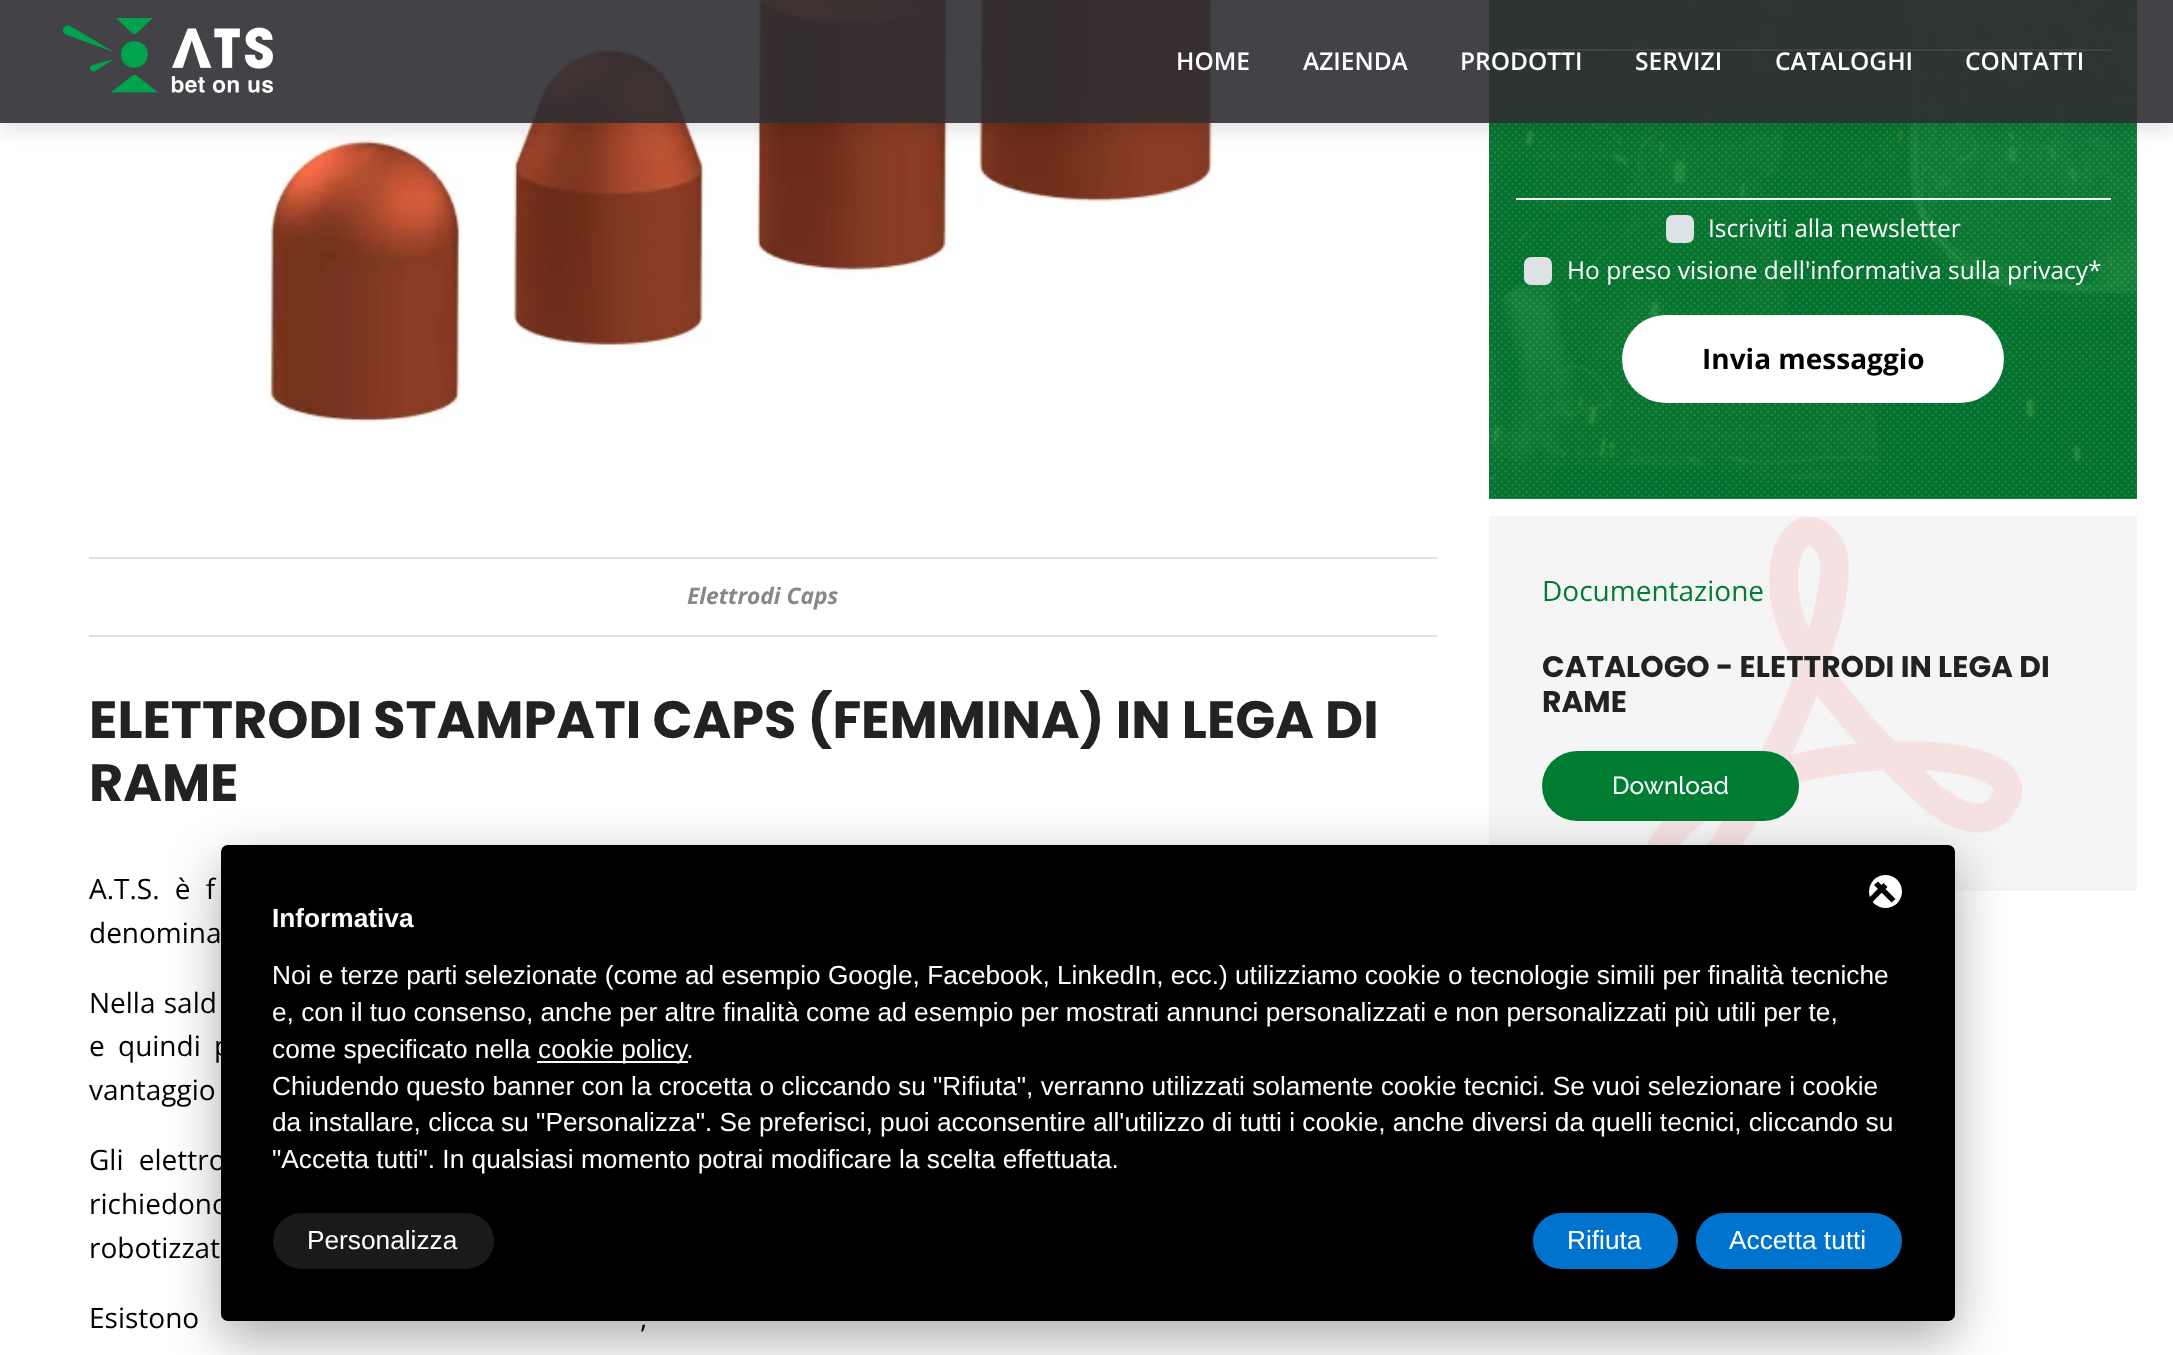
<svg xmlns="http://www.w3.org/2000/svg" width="2173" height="1355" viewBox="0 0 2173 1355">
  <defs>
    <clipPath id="clip1"><path d="M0 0H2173V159H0ZM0 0H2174V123H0Z" clip-rule="evenodd"/></clipPath>
    <filter id="blur1" x="-50%" y="-200%" width="200%" height="500%"><feGaussianBlur stdDeviation="9"/></filter>
    <filter id="blur2" x="-50%" y="-200%" width="200%" height="500%"><feGaussianBlur stdDeviation="26"/></filter>
  </defs>
  <rect width="100%" height="100%" fill="#ffffff"/>
  <rect x="1489" y="0" width="648" height="499" fill="#198a47"/>
  <image x="1489" y="0" width="648" height="499" href="img2.png"/>
  <image x="1490" y="1" width="647" height="498" href="img3.png"/>
  <rect x="1516" y="49" width="595" height="2" fill="#f1f1f1"/>
  <image x="269" y="0" width="946" height="423" href="img5.png"/>
  <g clip-path="url(#clip1)">
    <rect x="0" y="9" width="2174" height="122" fill="#000000" fill-opacity="0.1" filter="url(#blur1)"/>
  </g>
  <rect x="0" y="0" width="2173" height="123" fill="#2f2e32" fill-opacity="0.9"/>
  <image x="63" y="18" width="210" height="75" href="img1.png"/>
  <text x="1176" y="70" font-family="Open Sans" font-size="24.5" font-weight="600" fill="#ffffff">HOME</text>
  <text x="1303" y="70" font-family="Open Sans" font-size="24.5" font-weight="600" fill="#ffffff">AZIENDA</text>
  <text x="1460" y="70" font-family="Open Sans" font-size="24.5" font-weight="600" fill="#ffffff">PRODOTTI</text>
  <text x="1635" y="70" font-family="Open Sans" font-size="24.5" font-weight="600" fill="#ffffff">SERVIZI</text>
  <text x="1775" y="70" font-family="Open Sans" font-size="24.5" font-weight="600" fill="#ffffff">CATALOGHI</text>
  <text x="1965" y="70" font-family="Open Sans" font-size="24.5" font-weight="600" fill="#ffffff">CONTATTI</text>
  <rect x="1516" y="198" width="595" height="2" fill="#f1f1f1"/>
  <rect x="1666" y="215" width="28" height="28" rx="7" fill="#dee2e6"/>
  <text x="1708" y="237" font-family="Open Sans" font-size="24.5" fill="#ffffff">Iscriviti alla newsletter</text>
  <rect x="1524" y="257" width="28" height="28" rx="7" fill="#dee2e6"/>
  <text x="1567" y="279" font-family="Open Sans" font-size="24.5" fill="#ffffff">Ho preso visione dell'informativa sulla privacy*</text>
  <rect x="1622" y="315" width="382" height="88" rx="44" fill="#ffffff"/>
  <text x="1702" y="369" font-family="Open Sans" font-size="28" font-weight="bold" fill="#000000">Invia messaggio</text>
  <rect x="1489" y="516" width="648" height="375" fill="#f5f5f5"/>
  <image x="1647" y="517" width="375" height="328" href="img4.png"/>
  <text x="1542" y="601" font-family="Open Sans" font-size="28" fill="#007d32">Documentazione</text>
  <text x="1542" y="677" font-family="Poppins" font-size="29.75" font-weight="bold" fill="#222222">CATALOGO - ELETTRODI IN LEGA DI</text>
  <text x="1542" y="712" font-family="Poppins" font-size="29.75" font-weight="bold" fill="#222222">RAME</text>
  <rect x="1542" y="751" width="257" height="70" rx="35" fill="#007d32"/>
  <text x="1612" y="794" font-family="Raleway" font-size="24.5" font-weight="500" fill="#ffffff">Download</text>
  <rect x="89" y="557" width="1348" height="2" fill="#e1e1e1"/>
  <rect x="89" y="635" width="1348" height="2" fill="#e1e1e1"/>
  <text x="687" y="604" font-family="Open Sans" font-size="22.75" font-weight="bold" font-style="italic" fill="#888888">Elettrodi Caps</text>
  <text x="89" y="738" font-family="Poppins" font-size="52.5" font-weight="bold" fill="#222222">ELETTRODI STAMPATI CAPS (FEMMINA) IN LEGA DI</text>
  <text x="89" y="801" font-family="Poppins" font-size="52.5" font-weight="bold" fill="#222222">RAME</text>
  <text x="89" y="899" word-spacing="8" font-family="Open Sans" font-size="28" fill="#000000">A.T.S. è f</text>
  <text x="89" y="943" font-family="Open Sans" font-size="28" fill="#000000">denomina</text>
  <text x="89" y="1013" word-spacing="1" font-family="Open Sans" font-size="28" fill="#000000">Nella sald</text>
  <text x="89" y="1056" word-spacing="6" font-family="Open Sans" font-size="28" fill="#000000">e quindi p</text>
  <text x="89" y="1100" font-family="Open Sans" font-size="28" fill="#000000">vantaggio</text>
  <text x="89" y="1170" word-spacing="8" font-family="Open Sans" font-size="28" fill="#000000">Gli elettro</text>
  <text x="89" y="1214" word-spacing="8" font-family="Open Sans" font-size="28" fill="#000000">richiedono</text>
  <text x="89" y="1258" font-family="Open Sans" font-size="28" fill="#000000">robotizzat</text>
  <text x="89" y="1328" word-spacing="4" font-family="Open Sans" font-size="28" fill="#000000">Esistono</text>
  <text x="640" y="1328" word-spacing="4" font-family="Open Sans" font-size="28" fill="#000000">,</text>
  <rect x="221" y="863" width="1734" height="476" rx="7" fill="#000000" fill-opacity="0.33" filter="url(#blur2)"/>
  <rect x="221" y="845" width="1734" height="476" rx="7" fill="#000000"/>
  <circle cx="1885.5" cy="891.5" r="16.5" fill="#ffffff"/>
  <path d="M1874 885L1878 881.5L1895.5 899L1891.5 902.5Z" fill="#000000"/>
  <path d="M1883.5 883L1887.5 887L1872.5 902L1869 898Z" fill="#000000"/>
  <text x="272" y="927" font-family="Liberation Sans" font-size="26.25" font-weight="bold" fill="#ffffff">Informativa</text>
  <text x="272" y="984" font-family="Liberation Sans" font-size="26.25" fill="#ffffff">Noi e terze parti selezionate (come ad esempio Google, Facebook, LinkedIn, ecc.) utilizziamo cookie o tecnologie simili per finalità tecniche</text>
  <text x="272" y="1021" font-family="Liberation Sans" font-size="26.25" fill="#ffffff">e, con il tuo consenso, anche per altre finalità come ad esempio per mostrati annunci personalizzati e non personalizzati più utili per te,</text>
  <text x="272" y="1058" font-family="Liberation Sans" font-size="26.25" fill="#ffffff">come specificato nella</text>
  <rect x="537" y="1061" width="151" height="2" fill="#ffffff"/>
  <text x="538" y="1058" font-family="Liberation Sans" font-size="26.25" fill="#ffffff">cookie policy.</text>
  <text x="272" y="1095" font-family="Liberation Sans" font-size="26.25" fill="#ffffff">Chiudendo questo banner con la crocetta o cliccando su "Rifiuta", verranno utilizzati solamente cookie tecnici. Se vuoi selezionare i cookie</text>
  <text x="272" y="1131" font-family="Liberation Sans" font-size="26.25" fill="#ffffff">da installare, clicca su "Personalizza". Se preferisci, puoi acconsentire all'utilizzo di tutti i cookie, anche diversi da quelli tecnici, cliccando su</text>
  <text x="272" y="1168" font-family="Liberation Sans" font-size="26.25" fill="#ffffff">"Accetta tutti". In qualsiasi momento potrai modificare la scelta effettuata.</text>
  <rect x="273" y="1213" width="221" height="56" rx="28" fill="#1a1a1a"/>
  <text x="307" y="1249" font-family="Liberation Sans" font-size="26.25" fill="#ffffff">Personalizza</text>
  <rect x="1533" y="1213" width="145" height="56" rx="28" fill="#0073ce"/>
  <text x="1567" y="1249" font-family="Liberation Sans" font-size="26.25" fill="#ffffff">Rifiuta</text>
  <rect x="1696" y="1213" width="206" height="56" rx="28" fill="#0073ce"/>
  <text x="1729" y="1249" font-family="Liberation Sans" font-size="26.25" fill="#ffffff">Accetta tutti</text>
</svg>
